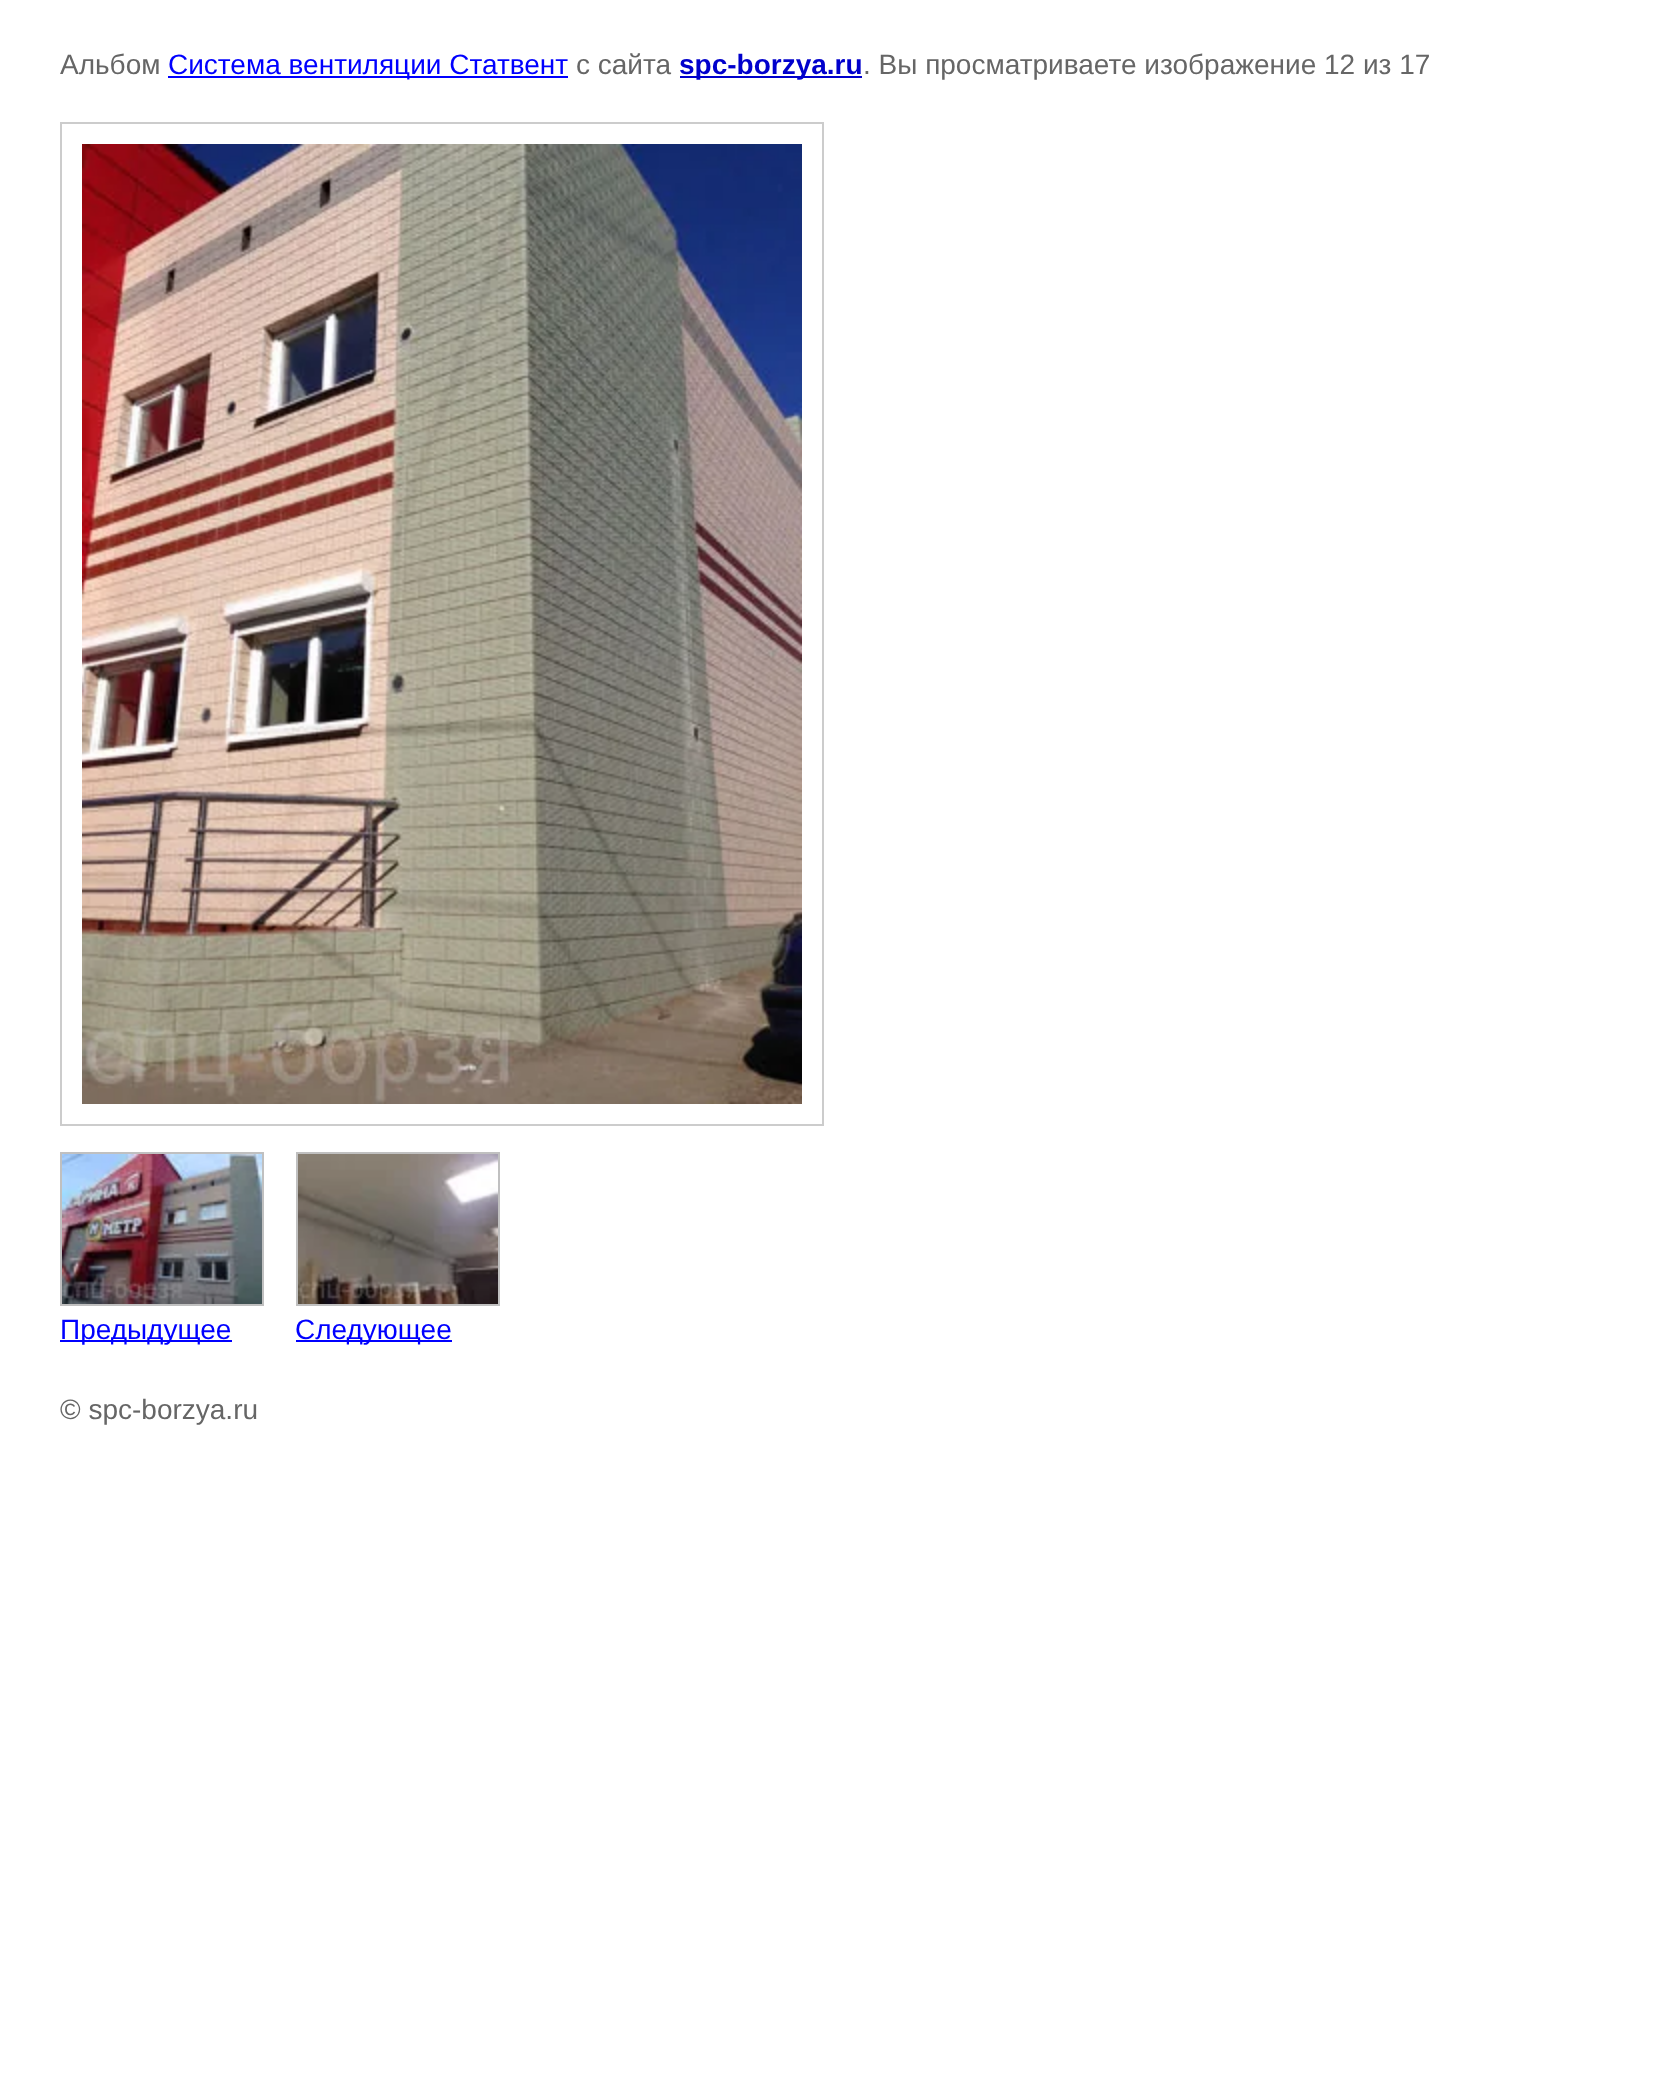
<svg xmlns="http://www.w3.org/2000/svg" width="1660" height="2084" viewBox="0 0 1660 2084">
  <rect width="100%" height="100%" fill="#ffffff"/>
  <text x="60" y="74" font-family="Liberation Sans" font-size="28" fill="#666666">Альбом</text>
  <rect x="168" y="76" width="400" height="2" fill="#0000ff"/>
  <text x="168" y="74" font-family="Liberation Sans" font-size="28" fill="#0000ff">Система вентиляции Статвент</text>
  <text x="576" y="74" font-family="Liberation Sans" font-size="28" fill="#666666">с сайта</text>
  <rect x="680" y="76" width="182" height="2" fill="#0000cc"/>
  <text x="679" y="74" font-family="Liberation Sans" font-size="28" font-weight="bold" fill="#0000cc">spc-borzya.ru</text>
  <text x="863" y="74" font-family="Liberation Sans" font-size="28" fill="#666666">. Вы просматриваете изображение 12 из 17</text>
  <rect x="61" y="123" width="762" height="1002" fill="none" stroke="#cccccc" stroke-width="2"/>
  <image x="82" y="144" width="720" height="960" href="img1.png"/>
  <rect x="61" y="1153" width="202" height="152" fill="none" stroke="#c0c0c0" stroke-width="2"/>
  <image x="62" y="1154" width="200" height="150" href="img2.png"/>
  <rect x="60" y="1340" width="172" height="2" fill="#0000ff"/>
  <text x="60" y="1339" font-family="Liberation Sans" font-size="28" fill="#0000ff">Предыдущее</text>
  <rect x="297" y="1153" width="202" height="152" fill="none" stroke="#c0c0c0" stroke-width="2"/>
  <image x="298" y="1154" width="200" height="150" href="img3.png"/>
  <rect x="296" y="1340" width="156" height="2" fill="#0000ff"/>
  <text x="295" y="1339" font-family="Liberation Sans" font-size="28" fill="#0000ff">Следующее</text>
  <text x="60" y="1419" font-family="Liberation Sans" font-size="28" fill="#666666">© spc-borzya.ru</text>
</svg>
